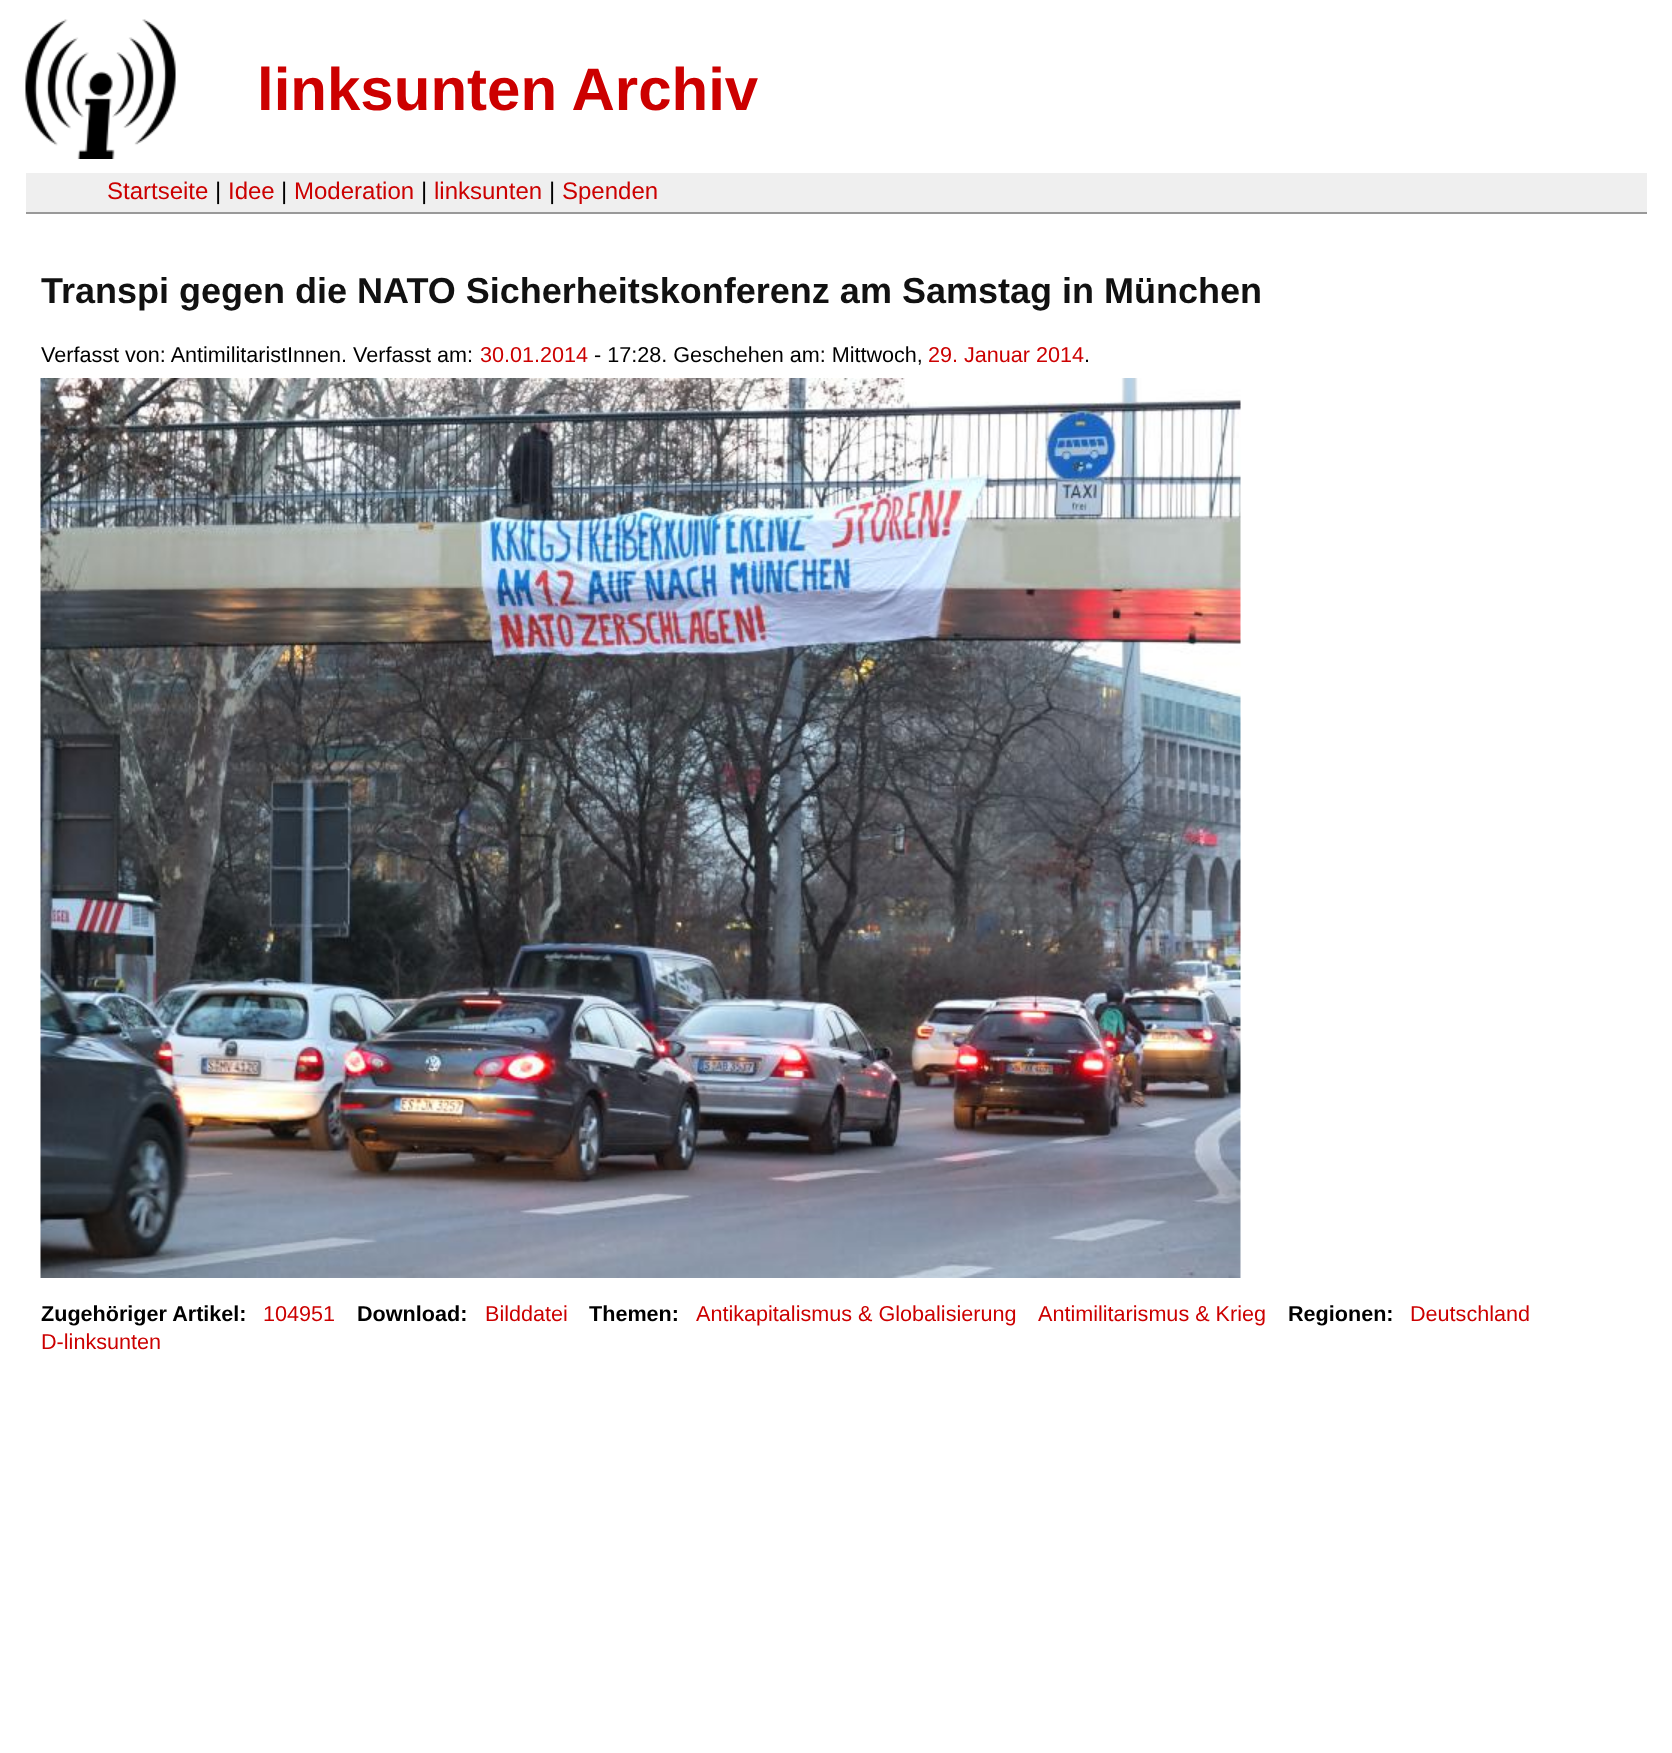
<svg xmlns="http://www.w3.org/2000/svg" width="1672" height="1753" viewBox="0 0 1672 1753">
  <rect width="100%" height="100%" fill="#ffffff"/>
  <image x="25" y="19" width="151" height="140" href="img1.png"/>
  <text x="257" y="110" font-family="Liberation Sans" font-size="60" font-weight="bold" fill="#cc0000">linksunten Archiv</text>
  <rect x="26" y="173" width="1621" height="39" fill="#efefef"/>
  <rect x="26" y="212" width="1621" height="2" fill="#999999"/>
  <text x="107" y="199" font-family="Liberation Sans" font-size="24" fill="#cc0000">Startseite</text>
  <text x="215" y="199" font-family="Liberation Sans" font-size="24" fill="#000000">|</text>
  <text x="228" y="199" font-family="Liberation Sans" font-size="24" fill="#cc0000">Idee</text>
  <text x="281" y="199" font-family="Liberation Sans" font-size="24" fill="#000000">|</text>
  <text x="294" y="199" font-family="Liberation Sans" font-size="24" fill="#cc0000">Moderation</text>
  <text x="421" y="199" font-family="Liberation Sans" font-size="24" fill="#000000">|</text>
  <text x="434" y="199" font-family="Liberation Sans" font-size="24" fill="#cc0000">linksunten</text>
  <text x="549" y="199" font-family="Liberation Sans" font-size="24" fill="#000000">|</text>
  <text x="562" y="199" font-family="Liberation Sans" font-size="24" fill="#cc0000">Spenden</text>
  <text x="41" y="303" font-family="Liberation Sans" font-size="36" font-weight="bold" fill="#111111">Transpi gegen die NATO Sicherheitskonferenz am Samstag in München</text>
  <text x="41" y="362" font-family="Liberation Sans" font-size="21.6" fill="#000000">Verfasst von: AntimilitaristInnen. Verfasst am:</text>
  <text x="480" y="362" font-family="Liberation Sans" font-size="21.6" fill="#cc0000">30.01.2014</text>
  <text x="594" y="362" font-family="Liberation Sans" font-size="21.6" fill="#000000">- 17:28. Geschehen am: Mittwoch,</text>
  <text x="928" y="362" font-family="Liberation Sans" font-size="21.6" fill="#cc0000">29. Januar 2014</text>
  <text x="1084" y="362" font-family="Liberation Sans" font-size="21.6" fill="#000000">.</text>
  <image x="40" y="378" width="1201" height="900" href="img2.png"/>
  <text x="41" y="1321" font-family="Liberation Sans" font-size="21.6" font-weight="bold" fill="#000000">Zugehöriger Artikel:</text>
  <text x="263" y="1321" font-family="Liberation Sans" font-size="21.6" fill="#cc0000">104951</text>
  <text x="357" y="1321" font-family="Liberation Sans" font-size="21.6" font-weight="bold" fill="#000000">Download:</text>
  <text x="485" y="1321" font-family="Liberation Sans" font-size="21.6" fill="#cc0000">Bilddatei</text>
  <text x="1288" y="1321" font-family="Liberation Sans" font-size="21.6" font-weight="bold" fill="#000000">Regionen:</text>
  <text x="1410" y="1321" font-family="Liberation Sans" font-size="21.6" fill="#cc0000">Deutschland</text>
  <text x="41" y="1349" font-family="Liberation Sans" font-size="21.6" fill="#cc0000">D-linksunten</text>
  <text x="589" y="1321" font-family="Liberation Sans" font-size="21.6" font-weight="bold" fill="#000000">Themen:</text>
  <text x="696" y="1321" font-family="Liberation Sans" font-size="21.6" fill="#cc0000">Antikapitalismus &amp; Globalisierung</text>
  <text x="1038" y="1321" font-family="Liberation Sans" font-size="21.6" fill="#cc0000">Antimilitarismus &amp; Krieg</text>
</svg>
